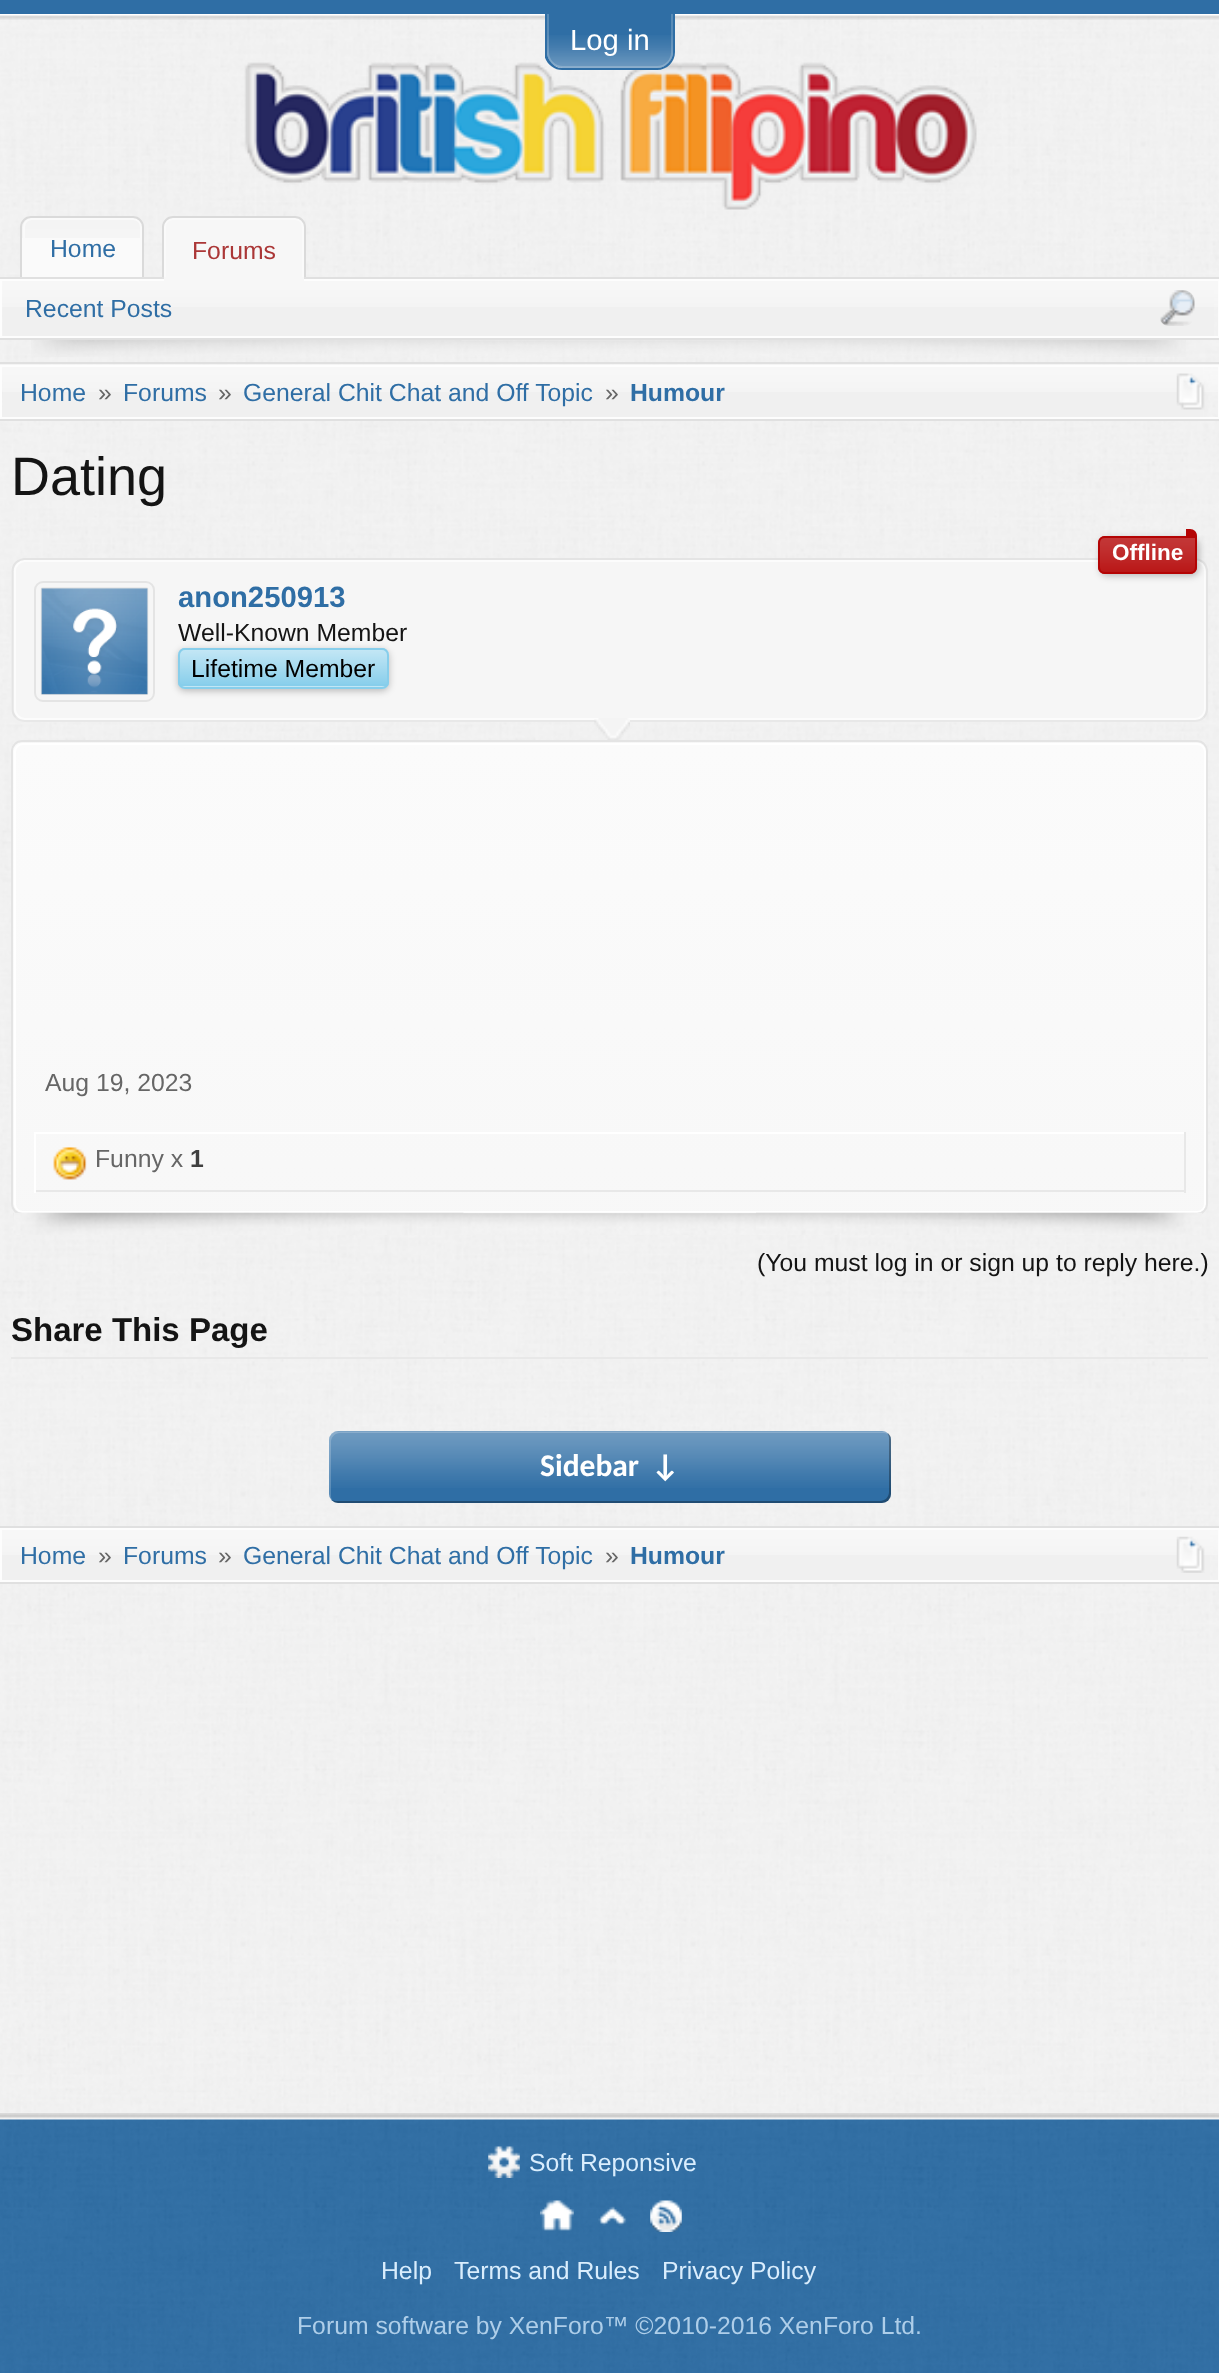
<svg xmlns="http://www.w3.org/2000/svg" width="1219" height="2373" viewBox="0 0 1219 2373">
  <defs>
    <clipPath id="clip1"><rect x="545" y="14" width="130" height="60"/></clipPath>
    <filter id="blur1" x="-50%" y="-200%" width="200%" height="500%"><feGaussianBlur stdDeviation="3.5"/></filter>
    <clipPath id="clip2"><rect x="178" y="648" width="211" height="41" rx="7"/></clipPath>
    <linearGradient id="g1" gradientUnits="userSpaceOnUse" x1="284" y1="650" x2="284" y2="686"><stop offset="0" stop-color="#ffffff" stop-opacity="0.5"/><stop offset="1" stop-color="#ffffff" stop-opacity="0"/></linearGradient>
    <linearGradient id="g2" gradientUnits="userSpaceOnUse" x1="284" y1="686" x2="284" y2="722"><stop offset="0" stop-color="#ffffff" stop-opacity="0.5"/><stop offset="1" stop-color="#ffffff" stop-opacity="0"/></linearGradient>
    <clipPath id="clip3"><rect x="11" y="740" width="1197" height="475" rx="11"/></clipPath>
    <linearGradient id="g3" gradientUnits="userSpaceOnUse" x1="610" y1="272" x2="610" y2="835"><stop offset="0" stop-color="#fafafa"/><stop offset="1" stop-color="#f6f6f6"/></linearGradient>
    <linearGradient id="g4" gradientUnits="userSpaceOnUse" x1="610" y1="743" x2="610" y2="1305"><stop offset="0" stop-color="#fbfbfb"/><stop offset="1" stop-color="#f7f7f7"/></linearGradient>
  </defs>
  <rect width="100%" height="100%" fill="#2f6ea5"/>
  <image x="0" y="2119" width="1219" height="254" href="img1.png"/>
  <rect x="0" y="15" width="1219" height="2098" fill="#f4f4f4"/>
  <image x="0" y="15" width="1219" height="2098" href="img3.png"/>
  <image x="0" y="14" width="1219" height="6" href="img4.png"/>
  <image x="244" y="62" width="733" height="148" href="img5.png"/>
  <path d="M547 14H673V52C673 61 666 68 657 68H563C554 68 547 61 547 52Z" fill="#2f6ea5"/>
  <image x="547" y="35" width="126" height="35" href="img2.png"/>
  <g clip-path="url(#clip1)">
    <path d="M548 6H672V52C672 60.5 665.5 67 657 67H563C554.5 67 548 60.5 548 52Z" fill="none" stroke="#ffffff" stroke-opacity="0.2" stroke-width="2"/>
    <path d="M544 4H675V52C675 62 667 70 657 70H562C553 70 544 62 544 52ZM547 4H673V52C673 60 666 68 657 68H562C554 68 547 60 547 52Z" fill="#2f6ea5" fill-rule="evenodd"/>
  </g>
  <text x="570" y="50" font-family="Liberation Sans" font-size="29.25" fill="#ffffff">Log in</text>
  <path d="M31 216H133C139 216 144 221 144 227V281H20V227C20 221 25 216 31 216Z" fill="#fafafa"/>
  <image x="21" y="219" width="123" height="19" href="img6.png"/>
  <path d="M32 219H133C137.5 219 141 222.5 141 227V278H24V227C24 222.5 27.5 219 32 219Z" fill="none" stroke="#fafafa" stroke-width="2"/>
  <path d="M31 217H133C138.5 217 143 221.5 143 227V280H21V227C21 221.5 25.5 217 31 217Z" fill="none" stroke="#dadada" stroke-width="2"/>
  <text x="50" y="257" font-family="Liberation Sans" font-size="24.75" fill="#2f6ea5">Home</text>
  <path d="M173 216H295C301 216 306 221 306 227V284H162V227C162 221 167 216 173 216Z" fill="#f7f7f7"/>
  <path d="M173 219H295C299.5 219 303 222.5 303 227V280H165V227C165 222.5 168.5 219 173 219Z" fill="none" stroke="#fafafa" stroke-width="2"/>
  <path d="M173 217H295C300.5 217 305 221.5 305 227V283H163V227C163 221.5 167.5 217 173 217Z" fill="none" stroke="#dadada" stroke-width="2"/>
  <text x="192" y="259" font-family="Liberation Sans" font-size="24.75" fill="#ab3737">Forums</text>
  <rect x="3" y="281" width="1211" height="55" fill="#f0f0f0"/>
  <image x="2" y="281" width="1216" height="26" href="img8.png"/>
  <rect x="1" y="280" width="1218" height="57" fill="none" stroke="#fdfdfd" stroke-width="2"/>
  <rect x="0" y="277" width="1219" height="2" fill="#e0e0e0"/>
  <rect x="164" y="277" width="140" height="4" fill="#f7f7f7"/>
  <image x="31" y="340" width="1155" height="17" href="img7.png"/>
  <rect x="0" y="338" width="1219" height="2" fill="#e0e0e0"/>
  <text x="25" y="317" font-family="Liberation Sans" font-size="24.75" fill="#2f6ea5">Recent Posts</text>
  <image x="1160" y="290" width="35" height="36" href="img9.png"/>
  <rect x="3" y="367" width="1200" height="50" fill="#f0f0f0"/>
  <image x="0" y="364" width="1219" height="28" href="img10.png"/>
  <rect x="1" y="366" width="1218" height="52" fill="none" stroke="#fdfdfd" stroke-width="2"/>
  <rect x="0" y="362" width="1219" height="2" fill="#e0e0e0"/>
  <rect x="0" y="419" width="1219" height="2" fill="#e0e0e0"/>
  <text x="20" y="401" font-family="Liberation Sans" font-size="24.75" fill="#2f6ea5">Home</text>
  <text x="98" y="401" font-family="Liberation Sans" font-size="24.75" fill="#666666">»</text>
  <text x="123" y="401" font-family="Liberation Sans" font-size="24.75" fill="#2f6ea5">Forums</text>
  <text x="218" y="401" font-family="Liberation Sans" font-size="24.75" fill="#666666">»</text>
  <text x="243" y="401" font-family="Liberation Sans" font-size="24.75" fill="#2f6ea5">General Chit Chat and Off Topic</text>
  <text x="605" y="401" font-family="Liberation Sans" font-size="24.75" fill="#666666">»</text>
  <text x="630" y="401" font-family="Liberation Sans" font-size="24.75" font-weight="bold" fill="#2f6ea5">Humour</text>
  <image x="1176" y="373" width="29" height="37" href="img11.png"/>
  <text x="11" y="495" font-family="Liberation Sans" font-size="54" fill="#141414">Dating</text>
  <rect x="11" y="558" width="1197" height="164" rx="14" fill="#f6f6f6"/>
  <rect x="15" y="561" width="1190" height="158" rx="10" fill="none" stroke="#fcfcfc" stroke-width="2"/>
  <path d="M1203.5 717.5C1201 720 1198 721 1195 721H25C21.5 721 18.5 720 16 717.5" fill="none" stroke="#e8e8e8" stroke-width="2.2"/>
  <path d="M16 717.5C13.5 715 12.5 712 12.5 709V571.5C12.5 568 13.5 565 16 562.5C18.5 560.5 21.5 559 24.5 559H1195C1198 559 1201 560.5 1203.5 562.5C1206 565 1207 568 1207 571.5V709C1207 712 1206 715 1203.5 717.5" fill="none" stroke="#e4e4e4" stroke-width="2.2"/>
  <rect x="1100" y="538" width="99" height="38" rx="7" fill="#000000" fill-opacity="0.25" filter="url(#blur1)"/>
  <path d="M1105 536H1197V567C1197 571 1194 574 1190 574H1105C1101 574 1098 571 1098 567V543C1098 539 1101 536 1105 536Z" fill="#b40404"/>
  <image x="1098" y="537" width="99" height="37" href="img12.png"/>
  <path d="M1105 537H1196V567C1196 570.5 1193.5 573 1190 573H1105C1101.5 573 1099 570.5 1099 567V543C1099 539.5 1101.5 537 1105 537Z" fill="none" stroke="#b40404" stroke-width="2"/>
  <path d="M1186 529H1190C1194 529 1197 532 1197 536V538H1186Z" fill="#b40404"/>
  <text x="1112" y="560" font-family="Liberation Sans" font-size="22.5" font-weight="bold" fill="#ffffff">Offline</text>
  <rect x="35" y="582" width="119" height="119" rx="8" fill="none" stroke="#e4e4e4" stroke-width="2"/>
  <image x="40" y="587" width="109" height="108" href="img13.png"/>
  <text x="178" y="607" font-family="Liberation Sans" font-size="29.25" font-weight="bold" fill="#2f6ea5">anon250913</text>
  <text x="178" y="641" font-family="Liberation Sans" font-size="24.75" fill="#141414">Well-Known Member</text>
  <rect x="178" y="650" width="211" height="41" rx="7" fill="#000000" fill-opacity="0.25" filter="url(#blur1)"/>
  <rect x="178" y="648" width="211" height="41" rx="7" fill="#87ceeb"/>
  <g clip-path="url(#clip2)">
    <rect x="178" y="650" width="211" height="34" fill="url(#g1)"/>
    <rect x="178" y="686" width="211" height="3" fill="url(#g2)"/>
  </g>
  <rect x="179" y="649" width="209" height="39" rx="6" fill="none" stroke="#87ceeb" stroke-width="2"/>
  <text x="191" y="677" font-family="Liberation Sans" font-size="24.75" fill="#000000">Lifetime Member</text>
  <image x="594" y="718" width="36" height="22" href="img14.png"/>
  <g clip-path="url(#clip3)">
    <rect x="11" y="740" width="1197" height="3" fill="url(#g3)"/>
    <rect x="11" y="743" width="1197" height="470" fill="url(#g4)"/>
  </g>
  <rect x="15" y="744" width="1190" height="468" rx="8" fill="none" stroke="#ffffff" stroke-width="2"/>
  <rect x="12" y="741" width="1195" height="473" rx="10" fill="none" stroke="#e4e4e4" stroke-width="2"/>
  <text x="45" y="1091" font-family="Liberation Sans" font-size="24.75" fill="#666666">Aug 19, 2023</text>
  <rect x="34" y="1132" width="1152" height="2" fill="#ffffff"/>
  <rect x="1184" y="1132" width="2" height="61" fill="#e8e8e8"/>
  <rect x="34" y="1190" width="1152" height="2" fill="#e8e8e8"/>
  <rect x="34" y="1132" width="2" height="61" fill="#ffffff"/>
  <image x="53" y="1147" width="34" height="33" href="img15.png"/>
  <text x="95" y="1167" font-family="Liberation Sans" font-size="24.75" fill="#666666">Funny x</text>
  <text x="190" y="1167" font-family="Liberation Sans" font-size="24.75" font-weight="bold" fill="#404040">1</text>
  <image x="13" y="1212" width="1189" height="23" href="img16.png"/>
  <text x="757" y="1271" font-family="Liberation Sans" font-size="24.75" fill="#141414">(You must log in or sign up to reply here.)</text>
  <rect x="11" y="1357" width="1197" height="2" fill="#e8e8e8"/>
  <text x="11" y="1341" font-family="Liberation Sans" font-size="33" font-weight="bold" fill="#141414">Share This Page</text>
  <rect x="329" y="1431" width="562" height="72" rx="9" fill="#2f6ea5"/>
  <image x="329" y="1431" width="562" height="57" href="img17.png"/>
  <path d="M332 1500C333 1502 336 1503 338 1503H882C887 1503 891 1499 891 1494V1440C891 1437 890 1434 887 1433C888 1434 889 1436 889 1438V1492C889 1497 885 1501 880 1501H335Z" fill="#000000" fill-opacity="0.3"/>
  <path d="M340 1433H884C886 1433 888 1434 889 1435C888 1432 885 1431 882 1431H338C333 1431 329 1435 329 1440V1494C329 1497 330 1500 333 1501C332 1500 331 1498 331 1496V1442C331 1437 335 1433 340 1433Z" fill="#ffffff" fill-opacity="0.2"/>
  <text x="540" y="1476" font-family="Carlito" font-size="31.5" font-weight="bold" fill="#ffffff">Sidebar</text>
  <text x="651" y="1476" font-family="Carlito" font-size="31.5" font-weight="bold" fill="#ffffff">↓</text>
  <rect x="2" y="1530" width="1208" height="50" fill="#f0f0f0"/>
  <image x="2" y="1530" width="1216" height="25" href="img18.png"/>
  <rect x="1" y="1529" width="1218" height="52" fill="none" stroke="#fdfdfd" stroke-width="2"/>
  <rect x="0" y="1526" width="1219" height="2" fill="#e0e0e0"/>
  <rect x="0" y="1582" width="1219" height="2" fill="#e0e0e0"/>
  <text x="20" y="1564" font-family="Liberation Sans" font-size="24.75" fill="#2f6ea5">Home</text>
  <text x="98" y="1564" font-family="Liberation Sans" font-size="24.75" fill="#666666">»</text>
  <text x="123" y="1564" font-family="Liberation Sans" font-size="24.75" fill="#2f6ea5">Forums</text>
  <text x="218" y="1564" font-family="Liberation Sans" font-size="24.75" fill="#666666">»</text>
  <text x="243" y="1564" font-family="Liberation Sans" font-size="24.75" fill="#2f6ea5">General Chit Chat and Off Topic</text>
  <text x="605" y="1564" font-family="Liberation Sans" font-size="24.75" fill="#666666">»</text>
  <text x="630" y="1564" font-family="Liberation Sans" font-size="24.75" font-weight="bold" fill="#2f6ea5">Humour</text>
  <image x="1176" y="1536" width="29" height="37" href="img19.png"/>
  <image x="0" y="2113" width="1219" height="7" href="img20.png"/>
  <image x="488" y="2146" width="32" height="32" href="img21.png"/>
  <text x="529" y="2171" font-family="Liberation Sans" font-size="24.75" fill="#d9edfd">Soft Reponsive</text>
  <image x="540" y="2200" width="34" height="31" href="img22.png"/>
  <image x="598" y="2206" width="29" height="20" href="img23.png"/>
  <image x="650" y="2200" width="32" height="32" href="img24.png"/>
  <text x="381" y="2279" font-family="Liberation Sans" font-size="24.75" fill="#d9edfd">Help</text>
  <text x="454" y="2279" font-family="Liberation Sans" font-size="24.75" fill="#d9edfd">Terms and Rules</text>
  <text x="662" y="2279" font-family="Liberation Sans" font-size="24.75" fill="#d9edfd">Privacy Policy</text>
  <text x="297" y="2334" font-family="Liberation Sans" font-size="24.75" fill="#aecee9">Forum software by XenForo™ ©2010-2016 XenForo Ltd.</text>
</svg>
